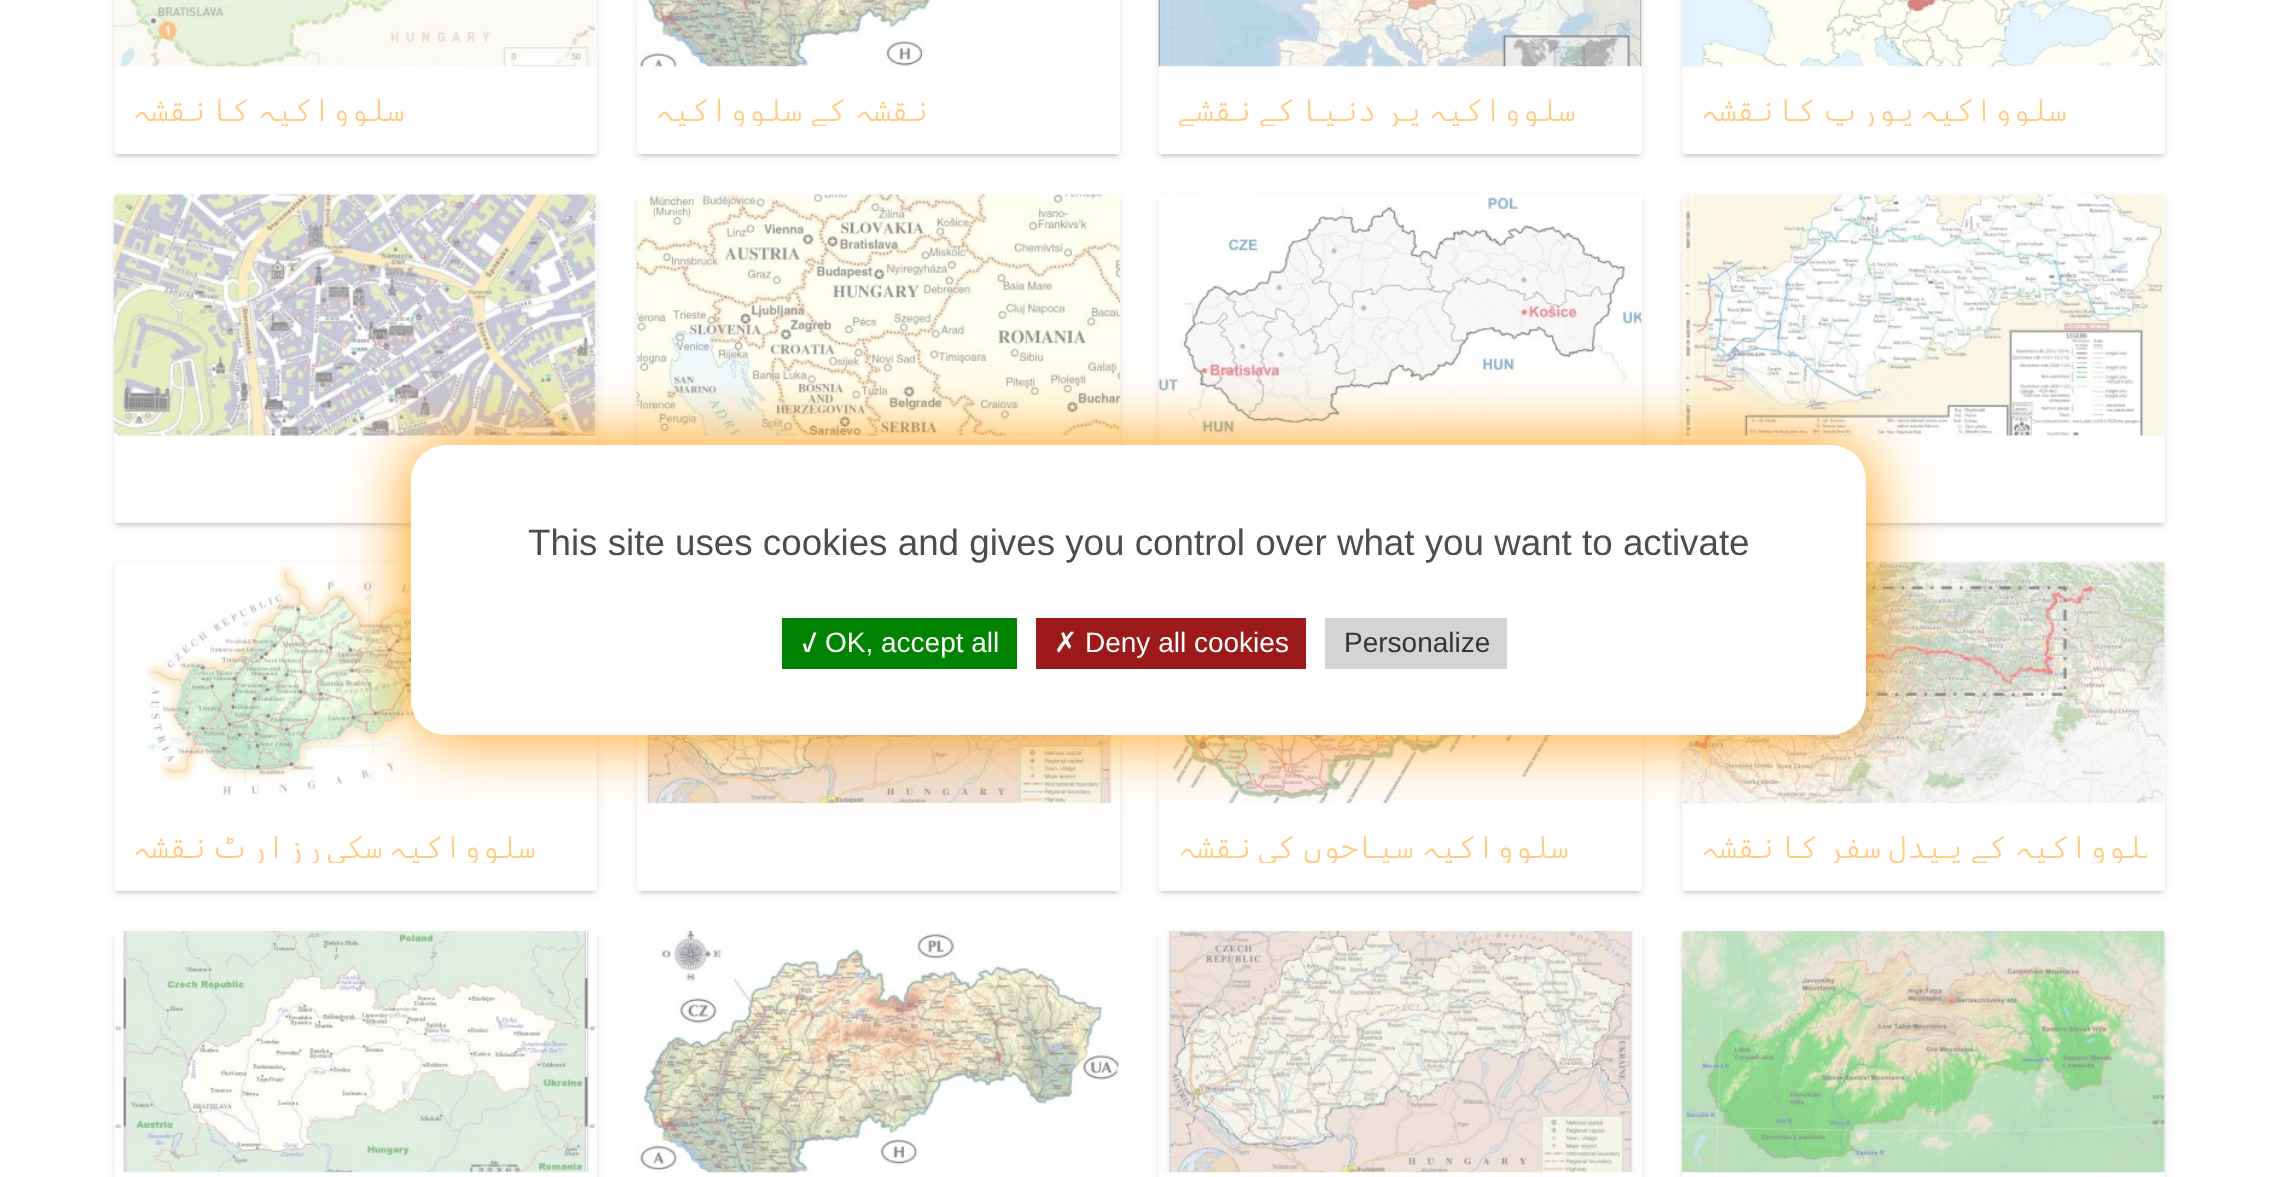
<svg xmlns="http://www.w3.org/2000/svg" width="2277" height="1177" viewBox="0 0 2277 1177">
  <defs>
    <filter id="blur1" x="-50%" y="-200%" width="200%" height="500%"><feGaussianBlur stdDeviation="1"/></filter>
    <filter id="blur2" x="-50%" y="-200%" width="200%" height="500%"><feGaussianBlur stdDeviation="4.5"/></filter>
    <filter id="blur3" x="-50%" y="-200%" width="200%" height="500%"><feGaussianBlur stdDeviation="2"/></filter>
    <clipPath id="clip1"><rect x="1699" y="95" width="448" height="31"/></clipPath>
    <clipPath id="clip2"><rect x="1176" y="95" width="448" height="31"/></clipPath>
    <clipPath id="clip3"><rect x="655" y="95" width="448" height="31"/></clipPath>
    <clipPath id="clip4"><rect x="131" y="95" width="448" height="31"/></clipPath>
    <clipPath id="clip5"><rect x="1699" y="831" width="448" height="32"/></clipPath>
    <clipPath id="clip6"><rect x="1176" y="831" width="448" height="32"/></clipPath>
    <clipPath id="clip7"><rect x="131" y="831" width="448" height="32"/></clipPath>
    <filter id="blur4" x="-50%" y="-200%" width="200%" height="500%"><feGaussianBlur stdDeviation="35"/></filter>
  </defs>
  <rect width="100%" height="100%" fill="#ffffff"/>
  <rect x="1685" y="-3" width="476" height="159" fill="#808080" fill-opacity="0.2" filter="url(#blur1)"/>
  <rect x="1682" y="-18" width="483" height="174" rx="4" fill="#808080" fill-opacity="0.12" filter="url(#blur2)"/>
  <rect x="1682" y="-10" width="483" height="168" rx="4" fill="#808080" fill-opacity="0.14" filter="url(#blur3)"/>
  <rect x="1682" y="-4" width="483" height="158" rx="4" fill="#ffffff"/>
  <image x="1682" y="0" width="483" height="67" href="img1.png"/>
  <g clip-path="url(#clip1)">
    <text x="2067" y="121" word-spacing="-13" font-family="Cascadia Code" font-size="31.5" font-weight="300" direction="rtl" fill="#ffcc80">سلوواکیہ یورپ کا نقشہ</text>
  </g>
  <rect x="1162" y="-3" width="476" height="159" fill="#808080" fill-opacity="0.2" filter="url(#blur1)"/>
  <rect x="1159" y="-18" width="483" height="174" rx="4" fill="#808080" fill-opacity="0.12" filter="url(#blur2)"/>
  <rect x="1159" y="-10" width="483" height="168" rx="4" fill="#808080" fill-opacity="0.14" filter="url(#blur3)"/>
  <rect x="1159" y="-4" width="483" height="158" rx="4" fill="#ffffff"/>
  <image x="1158" y="0" width="484" height="67" href="img2.png"/>
  <g clip-path="url(#clip2)">
    <text x="1576" y="121" word-spacing="-11" font-family="Cascadia Code" font-size="31.5" font-weight="300" direction="rtl" fill="#ffcc80">سلوواکیہ پر دنیا کے نقشے</text>
  </g>
  <rect x="641" y="-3" width="476" height="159" fill="#808080" fill-opacity="0.2" filter="url(#blur1)"/>
  <rect x="637" y="-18" width="483" height="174" rx="4" fill="#808080" fill-opacity="0.12" filter="url(#blur2)"/>
  <rect x="637" y="-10" width="483" height="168" rx="4" fill="#808080" fill-opacity="0.14" filter="url(#blur3)"/>
  <rect x="637" y="-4" width="483" height="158" rx="4" fill="#ffffff"/>
  <image x="637" y="0" width="476" height="67" href="img3.png"/>
  <g clip-path="url(#clip3)">
    <text x="928" y="121" word-spacing="-11" font-family="Cascadia Code" font-size="31.5" font-weight="300" direction="rtl" fill="#ffcc80">نقشہ کے سلوواکیہ</text>
  </g>
  <rect x="117" y="-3" width="476" height="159" fill="#808080" fill-opacity="0.2" filter="url(#blur1)"/>
  <rect x="114" y="-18" width="483" height="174" rx="4" fill="#808080" fill-opacity="0.12" filter="url(#blur2)"/>
  <rect x="114" y="-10" width="483" height="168" rx="4" fill="#808080" fill-opacity="0.14" filter="url(#blur3)"/>
  <rect x="114" y="-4" width="483" height="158" rx="4" fill="#ffffff"/>
  <image x="114" y="0" width="483" height="67" href="img4.png"/>
  <g clip-path="url(#clip4)">
    <text x="405" y="121" word-spacing="-11" font-family="Cascadia Code" font-size="31.5" font-weight="300" direction="rtl" fill="#ffcc80">سلوواکیہ کا نقشہ</text>
  </g>
  <rect x="1685" y="203" width="476" height="322" fill="#808080" fill-opacity="0.2" filter="url(#blur1)"/>
  <rect x="1682" y="196" width="483" height="329" rx="4" fill="#808080" fill-opacity="0.12" filter="url(#blur2)"/>
  <rect x="1682" y="198" width="483" height="329" rx="4" fill="#808080" fill-opacity="0.14" filter="url(#blur3)"/>
  <rect x="1682" y="194" width="483" height="329" rx="4" fill="#ffffff"/>
  <image x="1682" y="194" width="483" height="242" href="img5.png"/>
  <rect x="1159" y="196" width="483" height="329" rx="4" fill="#808080" fill-opacity="0.12" filter="url(#blur2)"/>
  <rect x="1159" y="198" width="483" height="329" rx="4" fill="#808080" fill-opacity="0.14" filter="url(#blur3)"/>
  <rect x="1159" y="194" width="483" height="329" rx="4" fill="#ffffff"/>
  <image x="1158" y="194" width="484" height="242" href="img6.png"/>
  <rect x="637" y="196" width="483" height="329" rx="4" fill="#808080" fill-opacity="0.12" filter="url(#blur2)"/>
  <rect x="637" y="198" width="483" height="329" rx="4" fill="#808080" fill-opacity="0.14" filter="url(#blur3)"/>
  <rect x="637" y="194" width="483" height="329" rx="4" fill="#ffffff"/>
  <image x="637" y="194" width="483" height="242" href="img7.png"/>
  <rect x="117" y="203" width="476" height="322" fill="#808080" fill-opacity="0.2" filter="url(#blur1)"/>
  <rect x="114" y="196" width="483" height="329" rx="4" fill="#808080" fill-opacity="0.12" filter="url(#blur2)"/>
  <rect x="114" y="198" width="483" height="329" rx="4" fill="#808080" fill-opacity="0.14" filter="url(#blur3)"/>
  <rect x="114" y="194" width="483" height="329" rx="4" fill="#ffffff"/>
  <image x="113" y="194" width="484" height="242" href="img8.png"/>
  <rect x="1685" y="571" width="476" height="322" fill="#808080" fill-opacity="0.2" filter="url(#blur1)"/>
  <rect x="1682" y="564" width="483" height="329" rx="4" fill="#808080" fill-opacity="0.12" filter="url(#blur2)"/>
  <rect x="1682" y="565" width="483" height="329" rx="4" fill="#808080" fill-opacity="0.14" filter="url(#blur3)"/>
  <rect x="1682" y="562" width="483" height="329" rx="4" fill="#ffffff"/>
  <image x="1681" y="561" width="484" height="243" href="img9.png"/>
  <g clip-path="url(#clip5)">
    <text x="2162" y="858" word-spacing="-11" font-family="Cascadia Code" font-size="31.5" font-weight="300" direction="rtl" fill="#ffcc80">سلوواکیہ کے پیدل سفر کا نقشہ</text>
  </g>
  <rect x="1162" y="571" width="476" height="322" fill="#808080" fill-opacity="0.2" filter="url(#blur1)"/>
  <rect x="1159" y="564" width="483" height="329" rx="4" fill="#808080" fill-opacity="0.12" filter="url(#blur2)"/>
  <rect x="1159" y="565" width="483" height="329" rx="4" fill="#808080" fill-opacity="0.14" filter="url(#blur3)"/>
  <rect x="1159" y="562" width="483" height="329" rx="4" fill="#ffffff"/>
  <image x="1158" y="735" width="484" height="69" href="img10.png"/>
  <g clip-path="url(#clip6)">
    <text x="1569" y="858" word-spacing="-11" font-family="Cascadia Code" font-size="31.5" font-weight="300" direction="rtl" fill="#ffcc80">سلوواکیہ سیاحوں کی نقشہ</text>
  </g>
  <rect x="641" y="571" width="476" height="322" fill="#808080" fill-opacity="0.2" filter="url(#blur1)"/>
  <rect x="637" y="564" width="483" height="329" rx="4" fill="#808080" fill-opacity="0.12" filter="url(#blur2)"/>
  <rect x="637" y="565" width="483" height="329" rx="4" fill="#808080" fill-opacity="0.14" filter="url(#blur3)"/>
  <rect x="637" y="562" width="483" height="329" rx="4" fill="#ffffff"/>
  <image x="637" y="735" width="483" height="69" href="img11.png"/>
  <rect x="117" y="571" width="476" height="322" fill="#808080" fill-opacity="0.2" filter="url(#blur1)"/>
  <rect x="114" y="564" width="483" height="329" rx="4" fill="#808080" fill-opacity="0.12" filter="url(#blur2)"/>
  <rect x="114" y="565" width="483" height="329" rx="4" fill="#808080" fill-opacity="0.14" filter="url(#blur3)"/>
  <rect x="114" y="562" width="483" height="329" rx="4" fill="#ffffff"/>
  <image x="139" y="562" width="417" height="241" href="img12.png"/>
  <g clip-path="url(#clip7)">
    <text x="536" y="858" word-spacing="-13" font-family="Cascadia Code" font-size="31.5" font-weight="300" direction="rtl" fill="#ffcc80">سلوواکیہ سکی رزارٹ نقشہ</text>
  </g>
  <rect x="1682" y="933" width="483" height="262" rx="4" fill="#808080" fill-opacity="0.12" filter="url(#blur2)"/>
  <rect x="1682" y="935" width="483" height="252" rx="4" fill="#808080" fill-opacity="0.14" filter="url(#blur3)"/>
  <rect x="1682" y="931" width="483" height="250" rx="4" fill="#ffffff"/>
  <image x="1681" y="931" width="484" height="242" href="img13.png"/>
  <rect x="1159" y="933" width="483" height="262" rx="4" fill="#808080" fill-opacity="0.12" filter="url(#blur2)"/>
  <rect x="1159" y="935" width="483" height="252" rx="4" fill="#808080" fill-opacity="0.14" filter="url(#blur3)"/>
  <rect x="1159" y="931" width="483" height="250" rx="4" fill="#ffffff"/>
  <image x="1159" y="931" width="482" height="242" href="img14.png"/>
  <image x="637" y="931" width="483" height="242" href="img15.png"/>
  <rect x="114" y="933" width="483" height="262" rx="4" fill="#808080" fill-opacity="0.12" filter="url(#blur2)"/>
  <rect x="114" y="935" width="483" height="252" rx="4" fill="#808080" fill-opacity="0.14" filter="url(#blur3)"/>
  <rect x="114" y="931" width="483" height="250" rx="4" fill="#ffffff"/>
  <image x="114" y="931" width="483" height="242" href="img16.png"/>
  <rect x="411" y="445" width="1455" height="290" rx="35" fill="#ff9800" filter="url(#blur4)"/>
  <rect x="411" y="445" width="1455" height="290" rx="35" fill="#ffffff"/>
  <text x="528" y="555" font-family="Liberation Sans" font-size="36.75" fill="#4d4d4d">This site uses cookies and gives you control over what you want to activate</text>
  <rect x="1325" y="618" width="182" height="51" fill="#d4d4d4"/>
  <text x="1344" y="652" font-family="Liberation Sans" font-size="28" fill="#333333">Personalize</text>
  <rect x="1036" y="618" width="270" height="51" fill="#9c1a1a"/>
  <text x="1085" y="652" font-family="Liberation Sans" font-size="28" fill="#ffffff">Deny all cookies</text>
  <text x="1054" y="652" font-family="DejaVu Sans" font-size="28" fill="#ffffff">✗</text>
  <rect x="782" y="618" width="235" height="51" fill="#008300"/>
  <text x="825" y="652" font-family="Liberation Sans" font-size="28" fill="#ffffff">OK, accept all</text>
  <text x="801" y="652" font-family="Cascadia Code" font-size="28" fill="#ffffff">✓</text>
</svg>
